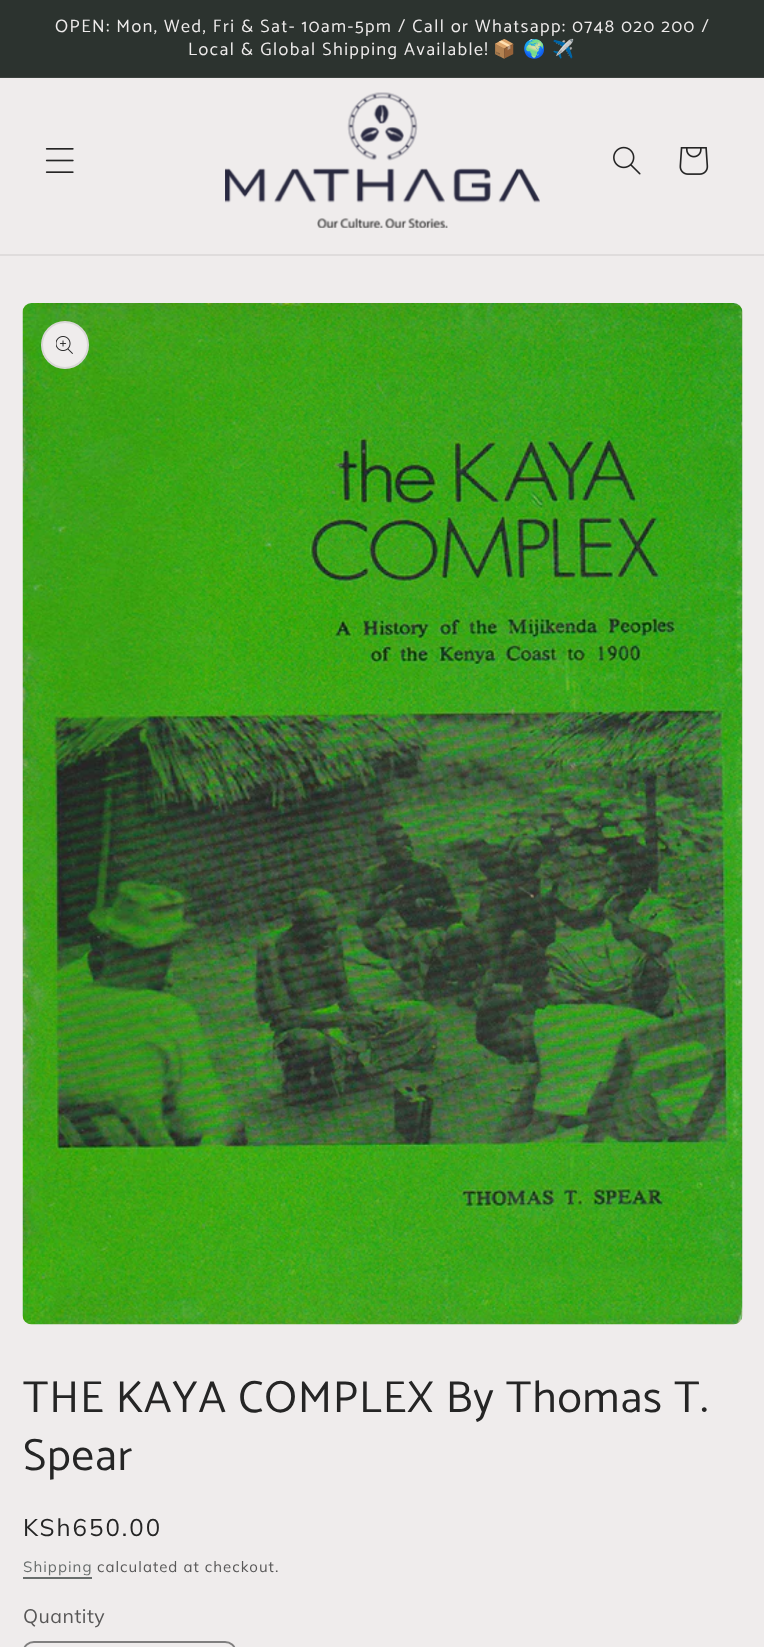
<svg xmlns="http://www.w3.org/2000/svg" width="764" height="1647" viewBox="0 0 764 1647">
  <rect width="100%" height="100%" fill="#efecec"/>
  <rect x="0" y="0" width="764" height="77" fill="#2c332f"/>
  <rect x="0" y="77" width="764" height="1" fill="#3c423e"/>
  <text x="55" y="32" font-family="Catamaran" font-size="18" letter-spacing="1.5" fill="#efecec">OPEN: Mon, Wed, Fri &amp; Sat- 10am-5pm / Call or Whatsapp: 0748 020 200 /</text>
  <text x="188" y="55" font-family="Catamaran" font-size="18" letter-spacing="1.5" fill="#efecec">Local &amp; Global Shipping Available!</text>
  <text x="493" y="55" font-family="Noto Color Emoji" font-size="18" letter-spacing="1.5" fill="#efecec">📦</text>
  <text x="523" y="55" font-family="Noto Color Emoji" font-size="18" letter-spacing="1.5" fill="#efecec">🌍</text>
  <text x="552" y="55" font-family="Noto Color Emoji" font-size="18" letter-spacing="1.5" fill="#efecec">✈️</text>
  <rect x="0" y="254" width="764" height="2" fill="#dfdcdc"/>
  <image x="45" y="148" width="29" height="25" href="img1.png"/>
  <image x="225" y="92" width="315" height="136" href="img2.png"/>
  <image x="613" y="146" width="28" height="29" href="img3.png"/>
  <image x="679" y="147" width="30" height="28" href="img4.png"/>
  <image x="22" y="303" width="721" height="1022" href="img5.png"/>
  <circle cx="65" cy="345" r="24" fill="#efecec"/>
  <circle cx="65" cy="345" r="23" fill="none" stroke="#252525" stroke-opacity="0.1" stroke-width="2"/>
  <image x="56" y="336" width="17" height="18" href="img6.png"/>
  <text x="23" y="1412" font-family="Catamaran" font-size="45" letter-spacing="0.9" fill="#252525">THE KAYA COMPLEX By Thomas T.</text>
  <text x="23" y="1470" font-family="Catamaran" font-size="45" letter-spacing="0.9" fill="#252525">Spear</text>
  <text x="23" y="1536" font-family="Muli" font-size="24" letter-spacing="2" fill="#252525">KSh650.00</text>
  <text x="23" y="1572" font-family="Muli" font-size="15" letter-spacing="1.05" fill="#686d6c">Shipping</text>
  <rect x="23" y="1577" width="69" height="2" fill="#686d6c"/>
  <text x="97" y="1572" font-family="Muli" font-size="15" letter-spacing="1.05" fill="#585757">calculated at checkout.</text>
  <text x="23" y="1623" font-family="Muli" font-size="19.5" letter-spacing="0.5" fill="#585757">Quantity</text>
  <rect x="24" y="1642" width="211" height="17" rx="10" fill="none" stroke="#807f7f" stroke-width="2"/>
</svg>
